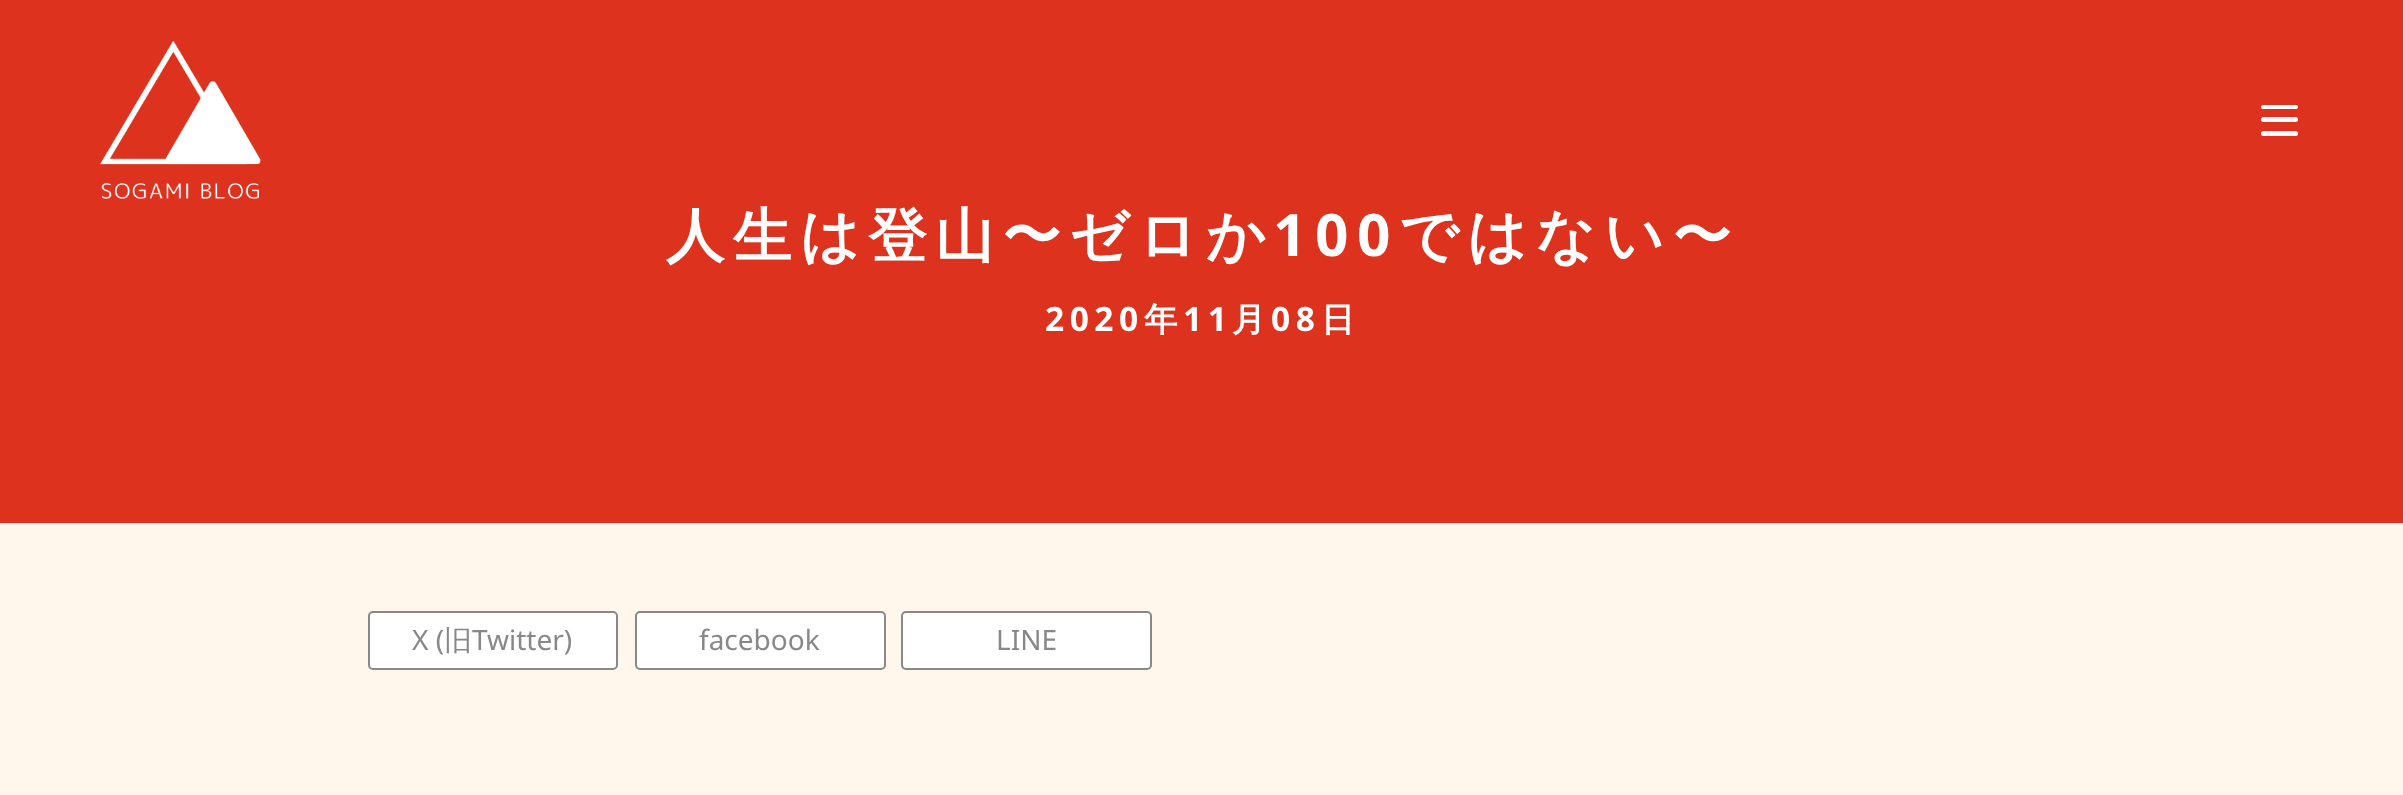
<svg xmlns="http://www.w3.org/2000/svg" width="2403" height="795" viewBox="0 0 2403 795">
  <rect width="100%" height="100%" fill="#fff7ec"/>
  <rect x="0" y="0" width="2403" height="523" fill="#dc321e"/>
  <image x="100" y="41" width="161" height="158" href="img1.png"/>
  <rect x="2261" y="105" width="37" height="4" rx="2" fill="#ffffff"/>
  <rect x="2261" y="117" width="37" height="5" rx="2.5" fill="#ffffff"/>
  <rect x="2261" y="131" width="37" height="5" rx="2.5" fill="#ffffff"/>
  <text x="666" y="256" font-family="WenQuanYi Zen Hei" font-size="58.5" font-weight="bold" letter-spacing="8.5" fill="#ffffff">人生は登山〜ゼロか</text>
  <text x="1273" y="256" font-family="Noto Sans" font-size="58.5" font-weight="bold" letter-spacing="8.5" fill="#ffffff">100</text>
  <text x="1399" y="256" font-family="WenQuanYi Zen Hei" font-size="58.5" font-weight="bold" letter-spacing="8.5" fill="#ffffff">ではない〜</text>
  <text x="1045" y="331" font-family="Noto Sans" font-size="33.5" font-weight="bold" letter-spacing="5.5" fill="#ffffff">2020</text>
  <text x="1144" y="331" font-family="WenQuanYi Zen Hei" font-size="33.5" font-weight="bold" letter-spacing="5.5" fill="#ffffff">年</text>
  <text x="1183" y="331" font-family="Noto Sans" font-size="33.5" font-weight="bold" letter-spacing="5.5" fill="#ffffff">11</text>
  <text x="1232" y="331" font-family="WenQuanYi Zen Hei" font-size="33.5" font-weight="bold" letter-spacing="5.5" fill="#ffffff">月</text>
  <text x="1271" y="331" font-family="Noto Sans" font-size="33.5" font-weight="bold" letter-spacing="5.5" fill="#ffffff">08</text>
  <text x="1321" y="331" font-family="WenQuanYi Zen Hei" font-size="33.5" font-weight="bold" letter-spacing="5.5" fill="#ffffff">日</text>
  <rect x="369" y="612" width="248" height="57" rx="4" fill="#ffffff" stroke="#888888" stroke-width="2"/>
  <text x="412" y="650" font-family="Noto Sans" font-size="28" fill="#888888">X (</text>
  <text x="444" y="650" font-family="WenQuanYi Zen Hei" font-size="28" font-weight="500" fill="#888888">旧</text>
  <text x="472" y="650" font-family="Noto Sans" font-size="28" fill="#888888">Twitter)</text>
  <rect x="636" y="612" width="249" height="57" rx="4" fill="#ffffff" stroke="#888888" stroke-width="2"/>
  <text x="699" y="650" font-family="Noto Sans" font-size="28" fill="#888888">facebook</text>
  <rect x="902" y="612" width="249" height="57" rx="4" fill="#ffffff" stroke="#888888" stroke-width="2"/>
  <text x="996" y="650" font-family="Noto Sans" font-size="28" fill="#888888">LINE</text>
</svg>
